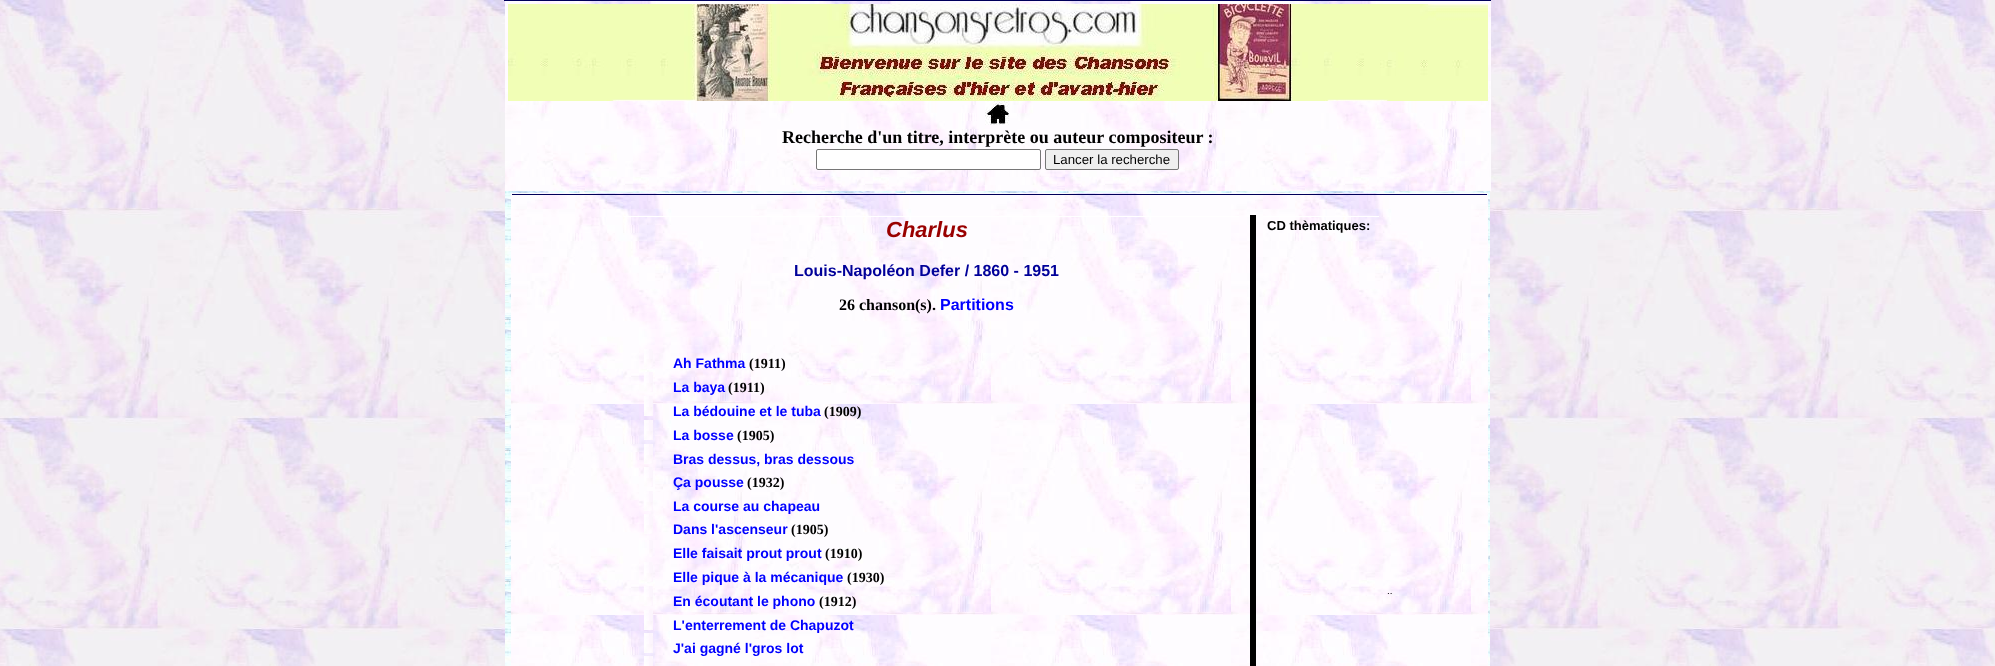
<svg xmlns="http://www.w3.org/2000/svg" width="1995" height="666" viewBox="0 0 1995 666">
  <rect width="100%" height="100%" fill="#ffffff"/>
  <image x="0" y="0" width="1995" height="666" href="img1.png"/>
  <rect x="504" y="0" width="987" height="1" fill="#00005a"/>
  <image x="505" y="1" width="986" height="190" href="img2.png"/>
  <image x="508" y="4" width="980" height="97" href="img3.png"/>
  <image x="985" y="101" width="24" height="24" href="img4.png"/>
  <text x="782" y="143" font-family="Liberation Serif" font-size="18" font-weight="bold" fill="#000000">Recherche d'un titre, interprète ou auteur compositeur :</text>
  <rect x="816.5" y="149.5" width="224" height="20" rx="1.5" fill="#ffffff" stroke="#767676"/>
  <rect x="1045.5" y="149.5" width="133" height="20" rx="1.5" fill="#efefef" stroke="#767676"/>
  <text x="1053" y="164" font-family="Liberation Sans" font-size="13.25" fill="#000000">Lancer la recherche</text>
  <image x="505" y="191" width="985" height="475" href="img5.png"/>
  <image x="511" y="193" width="977" height="473" href="img6.png"/>
  <rect x="512" y="194" width="975" height="1" fill="#00005a"/>
  <rect x="624" y="216" width="615" height="1" fill="#ffffff"/>
  <text x="886" y="237" font-family="Liberation Sans" font-size="22" font-weight="bold" font-style="italic" fill="#990000">Charlus</text>
  <text x="794" y="276" font-family="Liberation Sans" font-size="16" font-weight="bold" fill="#000099">Louis-Napoléon Defer / 1860 - 1951</text>
  <text x="839" y="310" font-family="Liberation Serif" font-size="16" font-weight="bold" fill="#000000">26 chanson(s).</text>
  <text x="940" y="310" font-family="Liberation Sans" font-size="16" font-weight="bold" fill="#0000ff">Partitions</text>
  <image x="644" y="349" width="9" height="19" href="img7.png"/>
  <text x="673" y="368" font-family="Liberation Sans" font-size="14" font-weight="bold" fill="#0000ff">Ah Fathma</text>
  <text x="749" y="368" font-family="Liberation Serif" font-size="14" font-weight="bold" fill="#000000">(1911)</text>
  <image x="644" y="372" width="9" height="20" href="img8.png"/>
  <text x="673" y="392" font-family="Liberation Sans" font-size="14" font-weight="bold" fill="#0000ff">La baya</text>
  <text x="728" y="392" font-family="Liberation Serif" font-size="14" font-weight="bold" fill="#000000">(1911)</text>
  <image x="644" y="396" width="9" height="20" href="img8.png"/>
  <text x="673" y="416" font-family="Liberation Sans" font-size="14" font-weight="bold" fill="#0000ff">La bédouine et le tuba</text>
  <text x="824" y="416" font-family="Liberation Serif" font-size="14" font-weight="bold" fill="#000000">(1909)</text>
  <image x="644" y="420" width="9" height="20" href="img8.png"/>
  <text x="673" y="440" font-family="Liberation Sans" font-size="14" font-weight="bold" fill="#0000ff">La bosse</text>
  <text x="737" y="440" font-family="Liberation Serif" font-size="14" font-weight="bold" fill="#000000">(1905)</text>
  <image x="644" y="444" width="9" height="20" href="img8.png"/>
  <text x="673" y="464" font-family="Liberation Sans" font-size="14" font-weight="bold" fill="#0000ff">Bras dessus, bras dessous</text>
  <image x="644" y="467" width="9" height="20" href="img8.png"/>
  <text x="673" y="487" font-family="Liberation Sans" font-size="14" font-weight="bold" fill="#0000ff">Ça pousse</text>
  <text x="747" y="487" font-family="Liberation Serif" font-size="14" font-weight="bold" fill="#000000">(1932)</text>
  <image x="644" y="491" width="9" height="20" href="img8.png"/>
  <text x="673" y="511" font-family="Liberation Sans" font-size="14" font-weight="bold" fill="#0000ff">La course au chapeau</text>
  <image x="644" y="514" width="9" height="20" href="img8.png"/>
  <text x="673" y="534" font-family="Liberation Sans" font-size="14" font-weight="bold" fill="#0000ff">Dans l'ascenseur</text>
  <text x="791" y="534" font-family="Liberation Serif" font-size="14" font-weight="bold" fill="#000000">(1905)</text>
  <image x="649" y="540" width="4" height="17" href="img9.png"/>
  <text x="673" y="558" font-family="Liberation Sans" font-size="14" font-weight="bold" fill="#0000ff">Elle faisait prout prout</text>
  <text x="825" y="558" font-family="Liberation Serif" font-size="14" font-weight="bold" fill="#000000">(1910)</text>
  <image x="644" y="562" width="9" height="20" href="img8.png"/>
  <text x="673" y="582" font-family="Liberation Sans" font-size="14" font-weight="bold" fill="#0000ff">Elle pique à la mécanique</text>
  <text x="847" y="582" font-family="Liberation Serif" font-size="14" font-weight="bold" fill="#000000">(1930)</text>
  <image x="644" y="586" width="9" height="20" href="img8.png"/>
  <text x="673" y="606" font-family="Liberation Sans" font-size="14" font-weight="bold" fill="#0000ff">En écoutant le phono</text>
  <text x="819" y="606" font-family="Liberation Serif" font-size="14" font-weight="bold" fill="#000000">(1912)</text>
  <image x="644" y="610" width="9" height="20" href="img8.png"/>
  <text x="673" y="630" font-family="Liberation Sans" font-size="14" font-weight="bold" fill="#0000ff">L'enterrement de Chapuzot</text>
  <image x="644" y="633" width="9" height="20" href="img8.png"/>
  <text x="673" y="653" font-family="Liberation Sans" font-size="14" font-weight="bold" fill="#0000ff">J'ai gagné l'gros lot</text>
  <image x="644" y="656" width="9" height="10" href="img10.png"/>
  <rect x="1250" y="215" width="6" height="451" fill="#000000"/>
  <rect x="1263" y="216" width="116" height="1" fill="#ffffff"/>
  <text x="1267" y="230" font-family="Liberation Sans" font-size="13" font-weight="bold" fill="#000000">CD thèmatiques:</text>
  <text x="1387" y="594" font-family="Liberation Sans" font-size="10" fill="#000000">..</text>
</svg>
